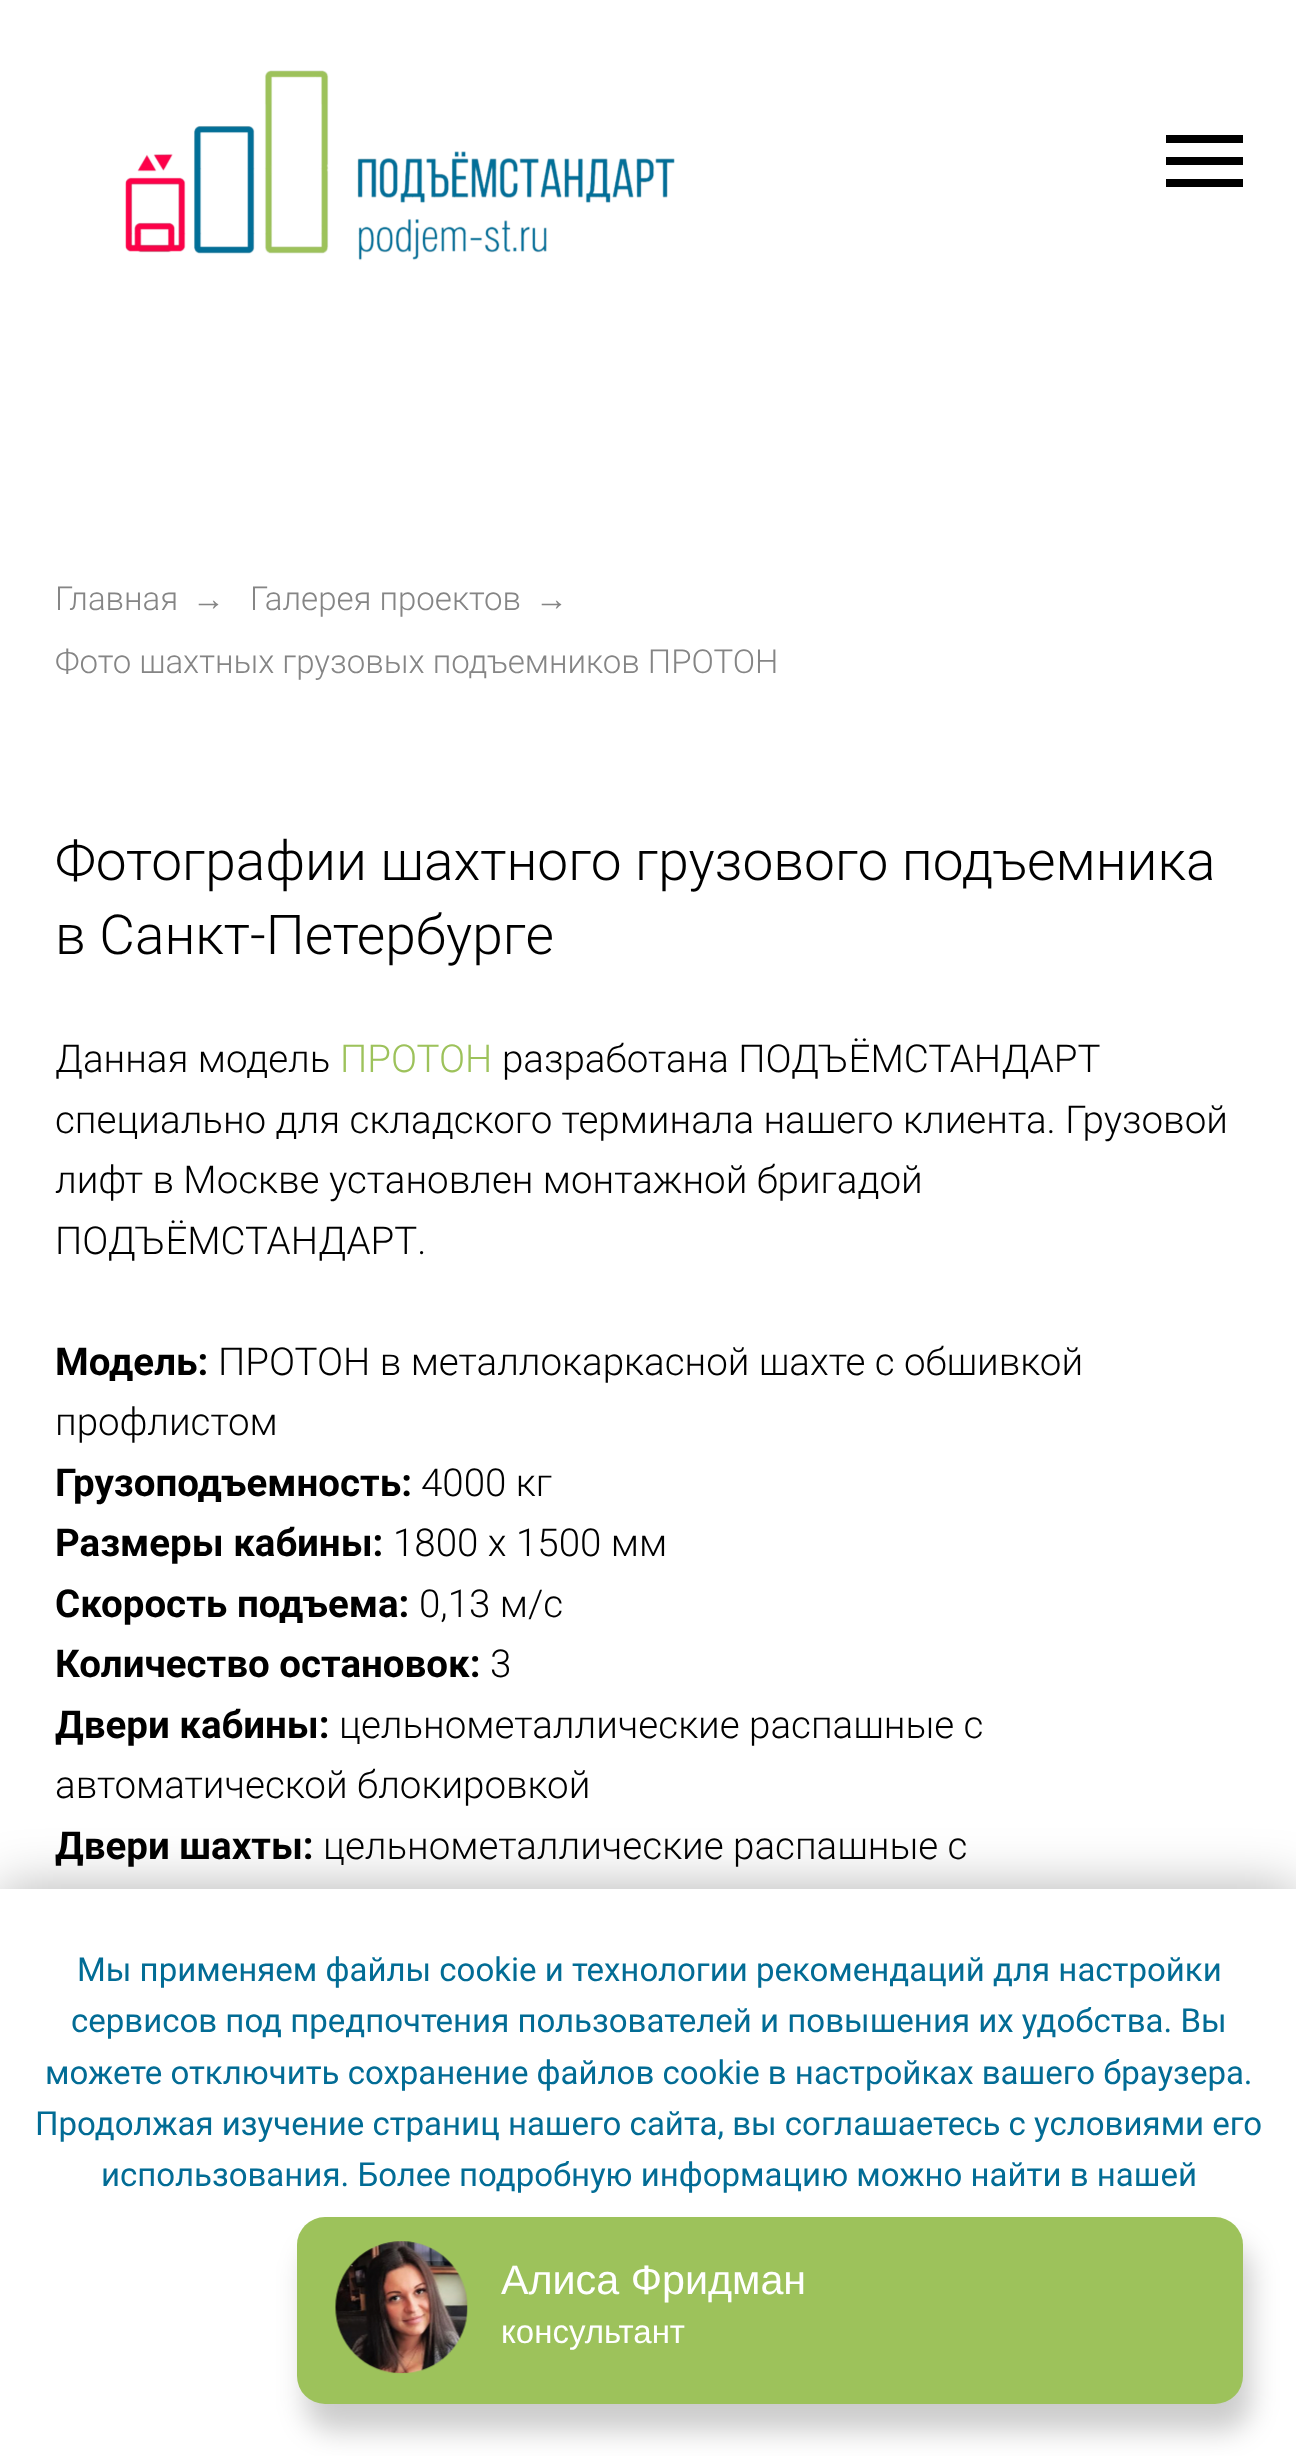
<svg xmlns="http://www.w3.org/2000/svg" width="1296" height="2456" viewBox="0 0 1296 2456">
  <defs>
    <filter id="blur1" x="-50%" y="-200%" width="200%" height="500%"><feGaussianBlur stdDeviation="27.5"/></filter>
    <filter id="blur2" x="-50%" y="-200%" width="200%" height="500%"><feGaussianBlur stdDeviation="14"/></filter>
  </defs>
  <rect width="100%" height="100%" fill="#ffffff"/>
  <text x="55" y="610" font-family="Roboto" font-size="33" font-weight="300" fill="#858585">Главная</text>
  <text x="192" y="610" font-family="Liberation Sans" font-size="33" fill="#858585">→</text>
  <text x="250" y="610" font-family="Roboto" font-size="33" font-weight="300" fill="#858585">Галерея проектов</text>
  <text x="535" y="610" font-family="Liberation Sans" font-size="33" fill="#858585">→</text>
  <text x="55" y="673" font-family="Roboto" font-size="33" font-weight="300" fill="#858585">Фото шахтных грузовых подъемников ПРОТОН</text>
  <text x="55" y="880" font-family="Roboto" font-size="55" font-weight="300" fill="#000000">Фотографии шахтного грузового подъемника</text>
  <text x="55" y="954" font-family="Roboto" font-size="55" font-weight="300" fill="#000000">в Санкт-Петербурге</text>
  <text x="55" y="1072" font-family="Roboto" font-size="38.5" font-weight="300" fill="#000000">Данная модель</text>
  <text x="340" y="1072" font-family="Roboto" font-size="38.5" font-weight="300" fill="#9dc25b">ПРОТОН</text>
  <text x="502" y="1072" font-family="Roboto" font-size="38.5" font-weight="300" fill="#000000">разработана ПОДЪЁМСТАНДАРТ</text>
  <text x="55" y="1133" font-family="Roboto" font-size="38.5" font-weight="300" fill="#000000">специально для складского терминала нашего клиента. Грузовой</text>
  <text x="55" y="1193" font-family="Roboto" font-size="38.5" font-weight="300" fill="#000000">лифт в Москве установлен монтажной бригадой</text>
  <text x="55" y="1254" font-family="Roboto" font-size="38.5" font-weight="300" fill="#000000">ПОДЪЁМСТАНДАРТ.</text>
  <text x="55" y="1375" font-family="Roboto" font-size="38.5" font-weight="bold" fill="#000000">Модель:</text>
  <text x="218" y="1375" font-family="Roboto" font-size="38.5" font-weight="300" fill="#000000">ПРОТОН в металлокаркасной шахте с обшивкой</text>
  <text x="55" y="1435" font-family="Roboto" font-size="38.5" font-weight="300" fill="#000000">профлистом</text>
  <text x="55" y="1496" font-family="Roboto" font-size="38.5" font-weight="bold" fill="#000000">Грузоподъемность:</text>
  <text x="421" y="1496" font-family="Roboto" font-size="38.5" font-weight="300" fill="#000000">4000 кг</text>
  <text x="55" y="1556" font-family="Roboto" font-size="38.5" font-weight="bold" fill="#000000">Размеры кабины:</text>
  <text x="393" y="1556" font-family="Roboto" font-size="38.5" font-weight="300" fill="#000000">1800 х 1500 мм</text>
  <text x="55" y="1617" font-family="Roboto" font-size="38.5" font-weight="bold" fill="#000000">Скорость подъема:</text>
  <text x="419" y="1617" font-family="Roboto" font-size="38.5" font-weight="300" fill="#000000">0,13 м/с</text>
  <text x="55" y="1677" font-family="Roboto" font-size="38.5" font-weight="bold" fill="#000000">Количество остановок:</text>
  <text x="490" y="1677" font-family="Roboto" font-size="38.5" font-weight="300" fill="#000000">3</text>
  <text x="55" y="1738" font-family="Roboto" font-size="38.5" font-weight="bold" fill="#000000">Двери кабины:</text>
  <text x="339" y="1738" font-family="Roboto" font-size="38.5" font-weight="300" fill="#000000">цельнометаллические распашные с</text>
  <text x="55" y="1798" font-family="Roboto" font-size="38.5" font-weight="300" fill="#000000">автоматической блокировкой</text>
  <text x="55" y="1859" font-family="Roboto" font-size="38.5" font-weight="bold" fill="#000000">Двери шахты:</text>
  <text x="323" y="1859" font-family="Roboto" font-size="38.5" font-weight="300" fill="#000000">цельнометаллические распашные с</text>
  <image x="125" y="70" width="550" height="191" href="img1.png"/>
  <rect x="1166" y="135" width="77" height="8" fill="#000000"/>
  <rect x="1166" y="157" width="77" height="8" fill="#000000"/>
  <rect x="1166" y="179" width="77" height="8" fill="#000000"/>
  <rect x="0" y="1889" width="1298" height="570" fill="#000000" fill-opacity="0.3" filter="url(#blur1)"/>
  <rect x="0" y="1889" width="1296" height="567" fill="#ffffff"/>
  <text x="77" y="1981" font-family="Roboto" font-size="33" fill="#026c95">Мы применяем файлы cookie и технологии рекомендаций для настройки</text>
  <text x="71" y="2032" font-family="Roboto" font-size="33" fill="#026c95">сервисов под предпочтения пользователей и повышения их удобства. Вы</text>
  <text x="45" y="2084" font-family="Roboto" font-size="33" fill="#026c95">можете отключить сохранение файлов cookie в настройках вашего браузера.</text>
  <text x="35" y="2135" font-family="Roboto" font-size="33" fill="#026c95">Продолжая изучение страниц нашего сайта, вы соглашаетесь с условиями его</text>
  <text x="101" y="2186" font-family="Roboto" font-size="33" fill="#026c95">использования. Более подробную информацию можно найти в нашей</text>
  <rect x="305" y="2244" width="946" height="187" rx="28" fill="#000000" fill-opacity="0.2" filter="url(#blur2)"/>
  <rect x="297" y="2217" width="946" height="187" rx="28" fill="#9dc25b"/>
  <image x="335" y="2241" width="133" height="133" href="img2.png"/>
  <text x="501" y="2294" font-family="Liberation Sans" font-size="41.25" fill="#ffffff">Алиса Фридман</text>
  <text x="501" y="2343" font-family="Liberation Sans" font-size="33" fill="#ffffff">консультант</text>
</svg>
